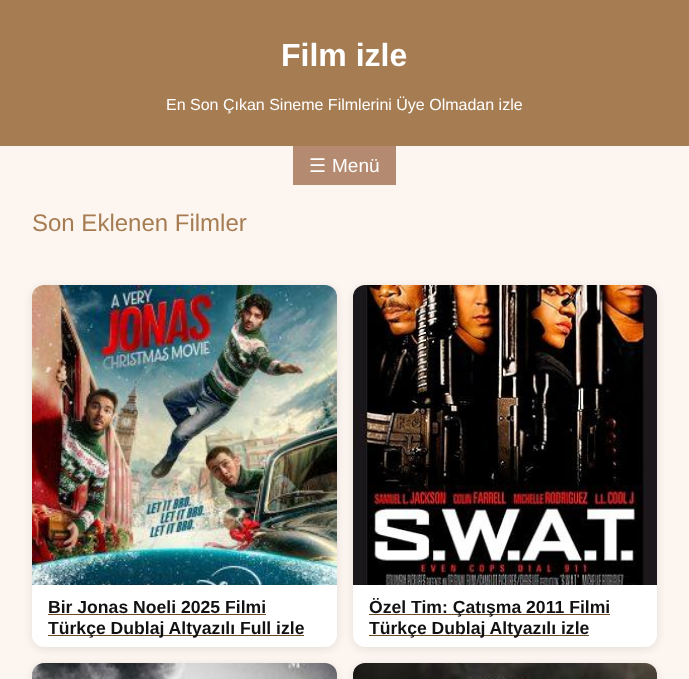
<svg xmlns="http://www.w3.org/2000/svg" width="689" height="679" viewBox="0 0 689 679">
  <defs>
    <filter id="blur1" x="-50%" y="-200%" width="200%" height="500%"><feGaussianBlur stdDeviation="4"/></filter>
  </defs>
  <rect width="100%" height="100%" fill="#fdf6f0"/>
  <rect x="0" y="0" width="689" height="146" fill="#a67c52"/>
  <text x="281" y="66" font-family="Liberation Sans" font-size="32" font-weight="bold" fill="#ffffff">Film izle</text>
  <text x="166" y="110" font-family="Liberation Sans" font-size="16" fill="#ffffff">En Son Çıkan Sineme Filmlerini Üye Olmadan izle</text>
  <rect x="293" y="146" width="103" height="39" fill="#b48a70"/>
  <text x="309" y="172" font-family="DejaVu Sans" font-size="19" fill="#ffffff">☰</text>
  <text x="332" y="172" font-family="Liberation Sans" font-size="19" fill="#ffffff">Menü</text>
  <text x="32" y="231" font-family="Liberation Sans" font-size="24" fill="#a67c52">Son Eklenen Filmler</text>
  <rect x="32" y="287" width="305" height="362" rx="12" fill="#000000" fill-opacity="0.1" filter="url(#blur1)"/>
  <rect x="32" y="285" width="305" height="362" rx="12" fill="#ffffff"/>
  <image x="32" y="285" width="305" height="300" href="img1.png"/>
  <text x="48" y="613" font-family="Liberation Sans" font-size="17.6" font-weight="bold" fill="#111111">Bir Jonas Noeli 2025 Filmi</text>
  <rect x="48" y="614" width="218" height="1" fill="#6b4c2b"/>
  <rect x="48" y="635" width="256" height="1" fill="#6b4c2b"/>
  <text x="48" y="634" font-family="Liberation Sans" font-size="17.6" font-weight="bold" fill="#111111">Türkçe Dublaj Altyazılı Full izle</text>
  <rect x="353" y="287" width="304" height="362" rx="12" fill="#000000" fill-opacity="0.1" filter="url(#blur1)"/>
  <rect x="353" y="285" width="304" height="362" rx="12" fill="#ffffff"/>
  <image x="353" y="285" width="304" height="300" href="img2.png"/>
  <rect x="369" y="614" width="241" height="1" fill="#6b4c2b"/>
  <text x="369" y="613" font-family="Liberation Sans" font-size="17.6" font-weight="bold" fill="#111111">Özel Tim: Çatışma 2011 Filmi</text>
  <rect x="369" y="635" width="220" height="1" fill="#6b4c2b"/>
  <text x="369" y="634" font-family="Liberation Sans" font-size="17.6" font-weight="bold" fill="#111111">Türkçe Dublaj Altyazılı izle</text>
  <rect x="32" y="665" width="305" height="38" rx="12" fill="#000000" fill-opacity="0.1" filter="url(#blur1)"/>
  <image x="32" y="663" width="305" height="16" href="img3.png"/>
  <rect x="353" y="665" width="304" height="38" rx="12" fill="#000000" fill-opacity="0.1" filter="url(#blur1)"/>
  <image x="353" y="663" width="304" height="16" href="img4.png"/>
</svg>
